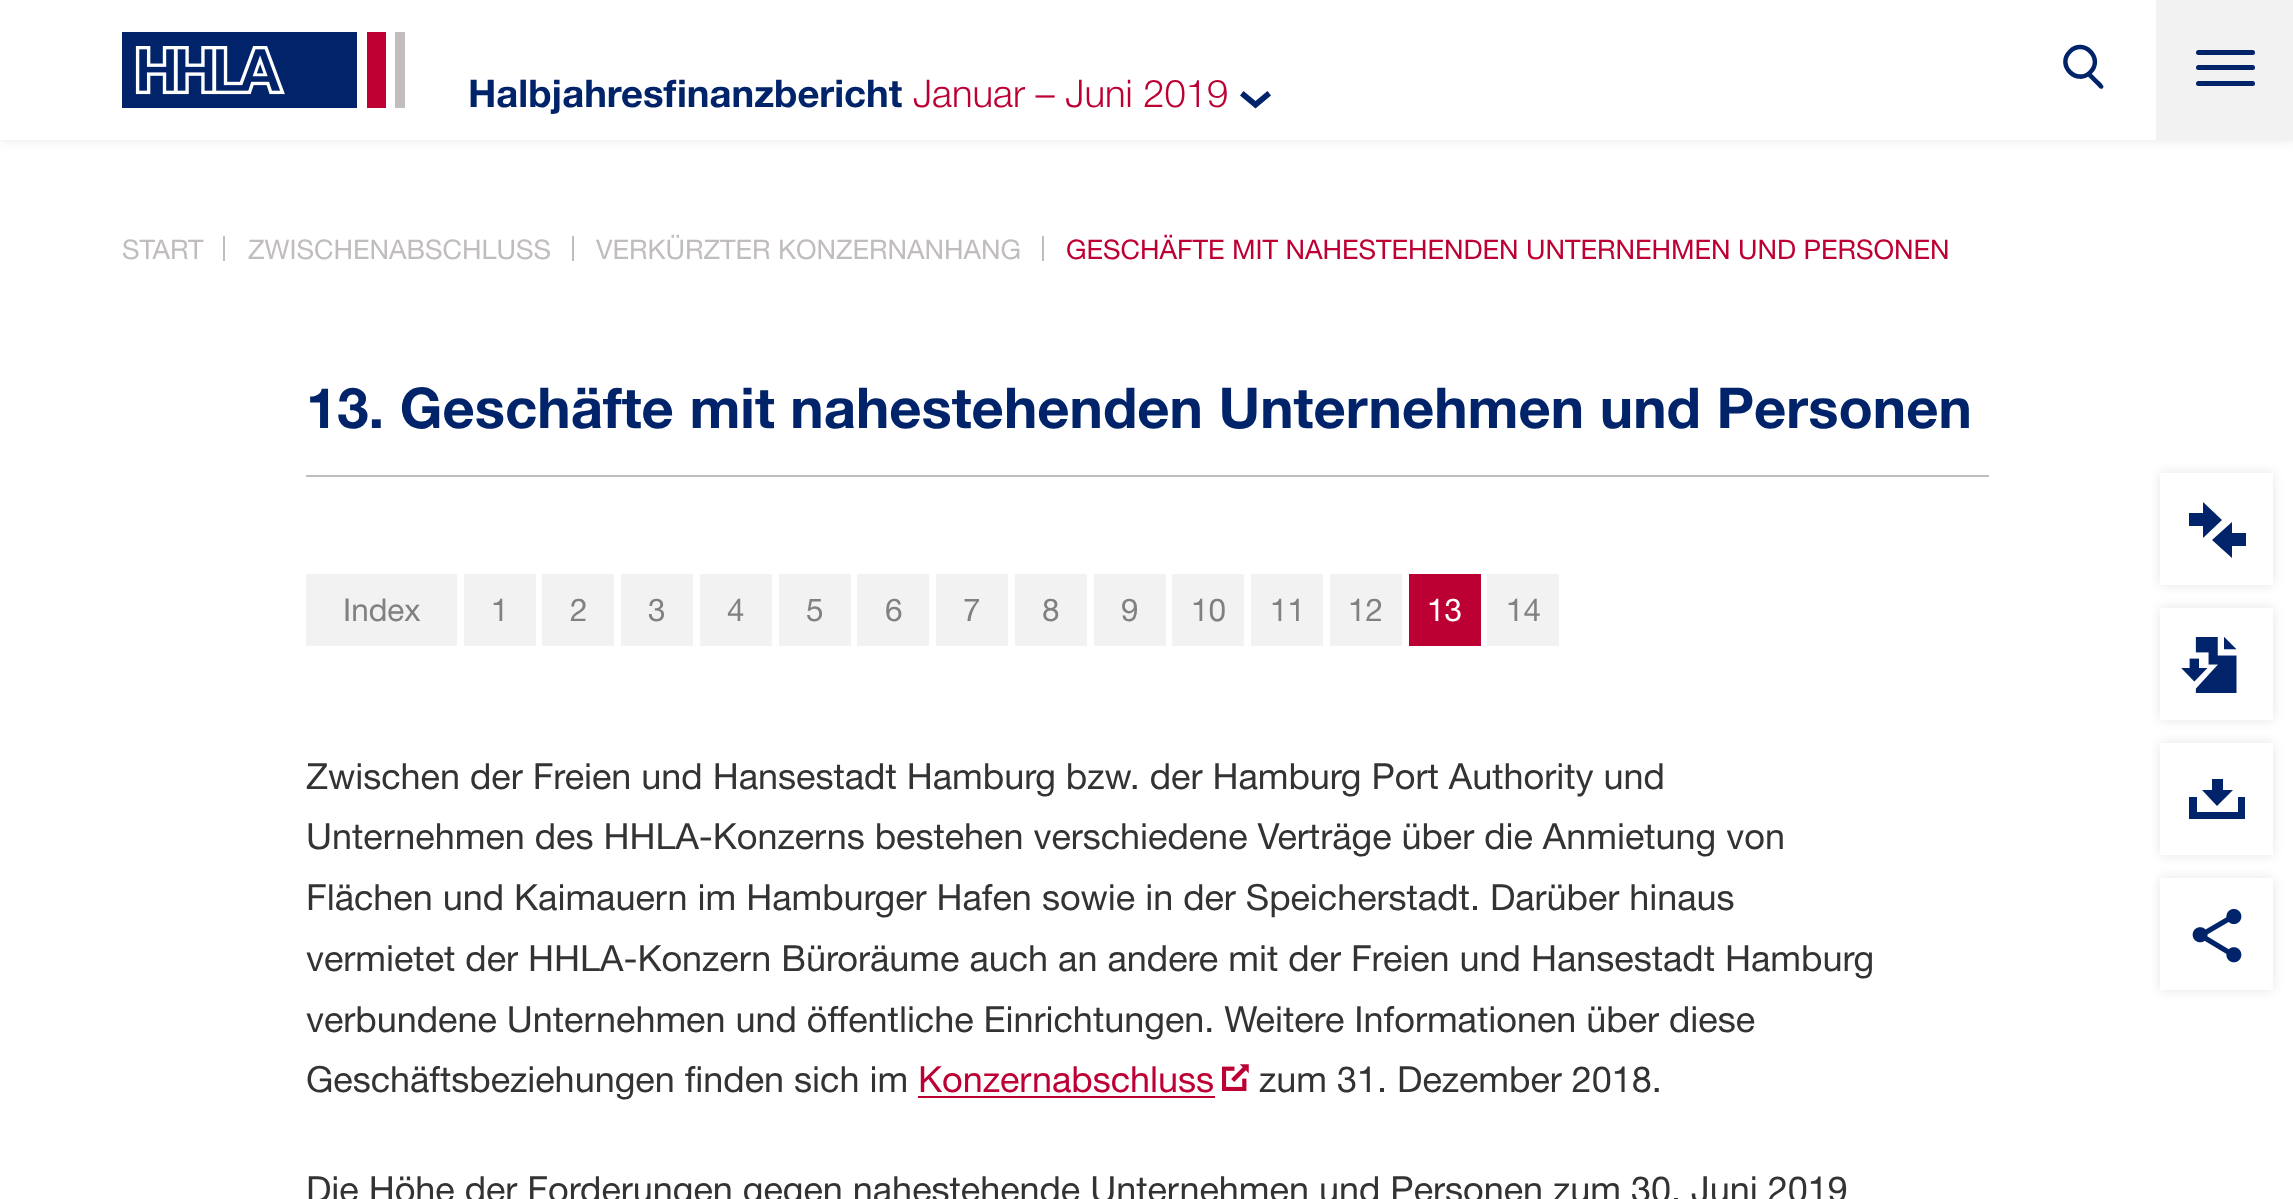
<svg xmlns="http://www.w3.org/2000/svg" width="2293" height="1199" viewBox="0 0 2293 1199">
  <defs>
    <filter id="blur1" x="-50%" y="-200%" width="200%" height="500%"><feGaussianBlur stdDeviation="5.5"/></filter>
    <clipPath id="clip1"><rect x="2189" y="779" width="57" height="40"/></clipPath>
  </defs>
  <rect width="100%" height="100%" fill="#ffffff"/>
  <rect x="0" y="0" width="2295" height="140" fill="#000000" fill-opacity="0.1" filter="url(#blur1)"/>
  <rect x="0" y="0" width="2156" height="140" fill="#ffffff"/>
  <image x="122" y="32" width="283" height="76" href="img1.png"/>
  <text x="468" y="107" font-family="Helvetica Neue" font-size="38.25" font-weight="bold" fill="#002369">Halbjahresfinanzbericht</text>
  <text x="913" y="107" font-family="Helvetica Neue" font-size="38.25" font-weight="300" fill="#bd0033">Januar – Juni 2019</text>
  <path d="M1255.5 108.5L1240 95.5L1243.5 91L1255.5 101L1267.5 91L1271 95.5Z" fill="#002369"/>
  <path d="M2070 51.5C2083.5 38 2104 58.5 2090.5 72C2077 86 2056 65 2070 51.5Z" fill="none" stroke="#002369" stroke-width="4.5"/>
  <path d="M2092 74L2097.5 79.5C2099 81 2104 85 2103.5 87L2102.5 88.5C2100 90 2097.5 85.5 2096 84.5L2088 76.5C2087.5 74 2090 72 2092 74Z" fill="#002369"/>
  <rect x="2156" y="0" width="137" height="140" fill="#f2f2f2"/>
  <rect x="2196" y="50" width="59" height="5" rx="2.5" fill="#002369"/>
  <rect x="2196" y="65" width="59" height="5" rx="2.5" fill="#002369"/>
  <rect x="2196" y="81" width="59" height="5" rx="2.5" fill="#002369"/>
  <rect x="223" y="236" width="2" height="25" fill="#c2bdbd"/>
  <text x="122" y="259" font-family="Helvetica Neue" font-size="27" fill="#c2bdbd">START</text>
  <rect x="572" y="236" width="2" height="25" fill="#c2bdbd"/>
  <text x="248" y="259" font-family="Helvetica Neue" font-size="27" fill="#c2bdbd">ZWISCHENABSCHLUSS</text>
  <rect x="1042" y="236" width="2" height="25" fill="#c2bdbd"/>
  <text x="596" y="259" font-family="Helvetica Neue" font-size="27" fill="#c2bdbd">VERKÜRZTER KONZERNANHANG</text>
  <text x="1066" y="259" font-family="Helvetica Neue" font-size="27" fill="#bd0033">GESCHÄFTE MIT NAHESTEHENDEN UNTERNEHMEN UND PERSONEN</text>
  <rect x="306" y="475" width="1683" height="2" fill="#c2bdbd"/>
  <text x="306" y="428" font-family="Helvetica Neue" font-size="56.25" font-weight="bold" fill="#002369">13. Geschäfte mit nahestehenden Unternehmen und Personen</text>
  <rect x="306" y="574" width="151" height="72" fill="#f2f2f2"/>
  <text x="343" y="621" font-family="Helvetica Neue" font-size="31.5" fill="#818181">Index</text>
  <rect x="464" y="574" width="72" height="72" fill="#f2f2f2"/>
  <text x="491" y="621" font-family="Helvetica Neue" font-size="31.5" fill="#818181">1</text>
  <rect x="542" y="574" width="72" height="72" fill="#f2f2f2"/>
  <text x="570" y="621" font-family="Helvetica Neue" font-size="31.5" fill="#818181">2</text>
  <rect x="621" y="574" width="72" height="72" fill="#f2f2f2"/>
  <text x="648" y="621" font-family="Helvetica Neue" font-size="31.5" fill="#818181">3</text>
  <rect x="700" y="574" width="72" height="72" fill="#f2f2f2"/>
  <text x="727" y="621" font-family="Helvetica Neue" font-size="31.5" fill="#818181">4</text>
  <rect x="779" y="574" width="72" height="72" fill="#f2f2f2"/>
  <text x="806" y="621" font-family="Helvetica Neue" font-size="31.5" fill="#818181">5</text>
  <rect x="857" y="574" width="72" height="72" fill="#f2f2f2"/>
  <text x="885" y="621" font-family="Helvetica Neue" font-size="31.5" fill="#818181">6</text>
  <rect x="936" y="574" width="72" height="72" fill="#f2f2f2"/>
  <text x="963" y="621" font-family="Helvetica Neue" font-size="31.5" fill="#818181">7</text>
  <rect x="1015" y="574" width="72" height="72" fill="#f2f2f2"/>
  <text x="1042" y="621" font-family="Helvetica Neue" font-size="31.5" fill="#818181">8</text>
  <rect x="1094" y="574" width="72" height="72" fill="#f2f2f2"/>
  <text x="1121" y="621" font-family="Helvetica Neue" font-size="31.5" fill="#818181">9</text>
  <rect x="1172" y="574" width="72" height="72" fill="#f2f2f2"/>
  <text x="1191" y="621" font-family="Helvetica Neue" font-size="31.5" fill="#818181">10</text>
  <rect x="1251" y="574" width="72" height="72" fill="#f2f2f2"/>
  <text x="1270" y="621" font-family="Helvetica Neue" font-size="31.5" fill="#818181">11</text>
  <rect x="1330" y="574" width="72" height="72" fill="#f2f2f2"/>
  <text x="1348" y="621" font-family="Helvetica Neue" font-size="31.5" fill="#818181">12</text>
  <rect x="1409" y="574" width="72" height="72" fill="#bd0033"/>
  <text x="1427" y="621" font-family="Helvetica Neue" font-size="31.5" fill="#ffffff">13</text>
  <rect x="1487" y="574" width="72" height="72" fill="#f2f2f2"/>
  <text x="1506" y="621" font-family="Helvetica Neue" font-size="31.5" fill="#818181">14</text>
  <text x="306" y="789" font-family="Helvetica Neue" font-size="36" fill="#333333">Zwischen der Freien und Hansestadt Hamburg bzw. der Hamburg Port Authority und</text>
  <text x="306" y="849" font-family="Helvetica Neue" font-size="36" fill="#333333">Unternehmen des HHLA-Konzerns bestehen verschiedene Verträge über die Anmietung von</text>
  <text x="306" y="910" font-family="Helvetica Neue" font-size="36" fill="#333333">Flächen und Kaimauern im Hamburger Hafen sowie in der Speicherstadt. Darüber hinaus</text>
  <text x="306" y="971" font-family="Helvetica Neue" font-size="36" fill="#333333">vermietet der HHLA-Konzern Büroräume auch an andere mit der Freien und Hansestadt Hamburg</text>
  <text x="306" y="1032" font-family="Helvetica Neue" font-size="36" fill="#333333">verbundene Unternehmen und öffentliche Einrichtungen. Weitere Informationen über diese</text>
  <text x="306" y="1092" font-family="Helvetica Neue" font-size="36" fill="#333333">Geschäftsbeziehungen finden sich im</text>
  <text x="918" y="1092" font-family="Helvetica Neue" font-size="36" fill="#bd0033">Konzernabschluss</text>
  <rect x="918" y="1096" width="297" height="2" fill="#bd0033"/>
  <image x="1222" y="1064" width="27" height="27" href="img2.png"/>
  <text x="1259" y="1092" font-family="Helvetica Neue" font-size="36" fill="#333333">zum 31. Dezember 2018.</text>
  <text x="306" y="1202" font-family="Helvetica Neue" font-size="36" fill="#333333">Die Höhe der Forderungen gegen nahestehende Unternehmen und Personen zum 30. Juni 2019</text>
  <rect x="2160" y="473" width="113" height="112" fill="#000000" fill-opacity="0.1" filter="url(#blur1)"/>
  <rect x="2160" y="473" width="113" height="112" fill="#ffffff"/>
  <path d="M2203 502V513H2189V526H2203V538L2222 520ZM2212 540L2232 558V546H2246V533H2232V522Z" fill="#002369" fill-rule="evenodd"/>
  <rect x="2160" y="608" width="113" height="112" fill="#000000" fill-opacity="0.1" filter="url(#blur1)"/>
  <rect x="2160" y="608" width="113" height="112" fill="#ffffff"/>
  <image x="2181" y="637" width="56" height="56" href="img3.png"/>
  <rect x="2160" y="743" width="113" height="112" fill="#000000" fill-opacity="0.1" filter="url(#blur1)"/>
  <rect x="2160" y="743" width="113" height="112" fill="#ffffff"/>
  <g clip-path="url(#clip1)">
    <path d="M2245 797V820H2189V797H2197V812H2238V797ZM2233 790L2217 806L2202 790H2212V778H2223V790Z" fill="#002369"/>
  </g>
  <rect x="2160" y="878" width="113" height="112" fill="#000000" fill-opacity="0.1" filter="url(#blur1)"/>
  <rect x="2160" y="878" width="113" height="112" fill="#ffffff"/>
  <image x="2192" y="908" width="50" height="55" href="img4.png"/>
</svg>
